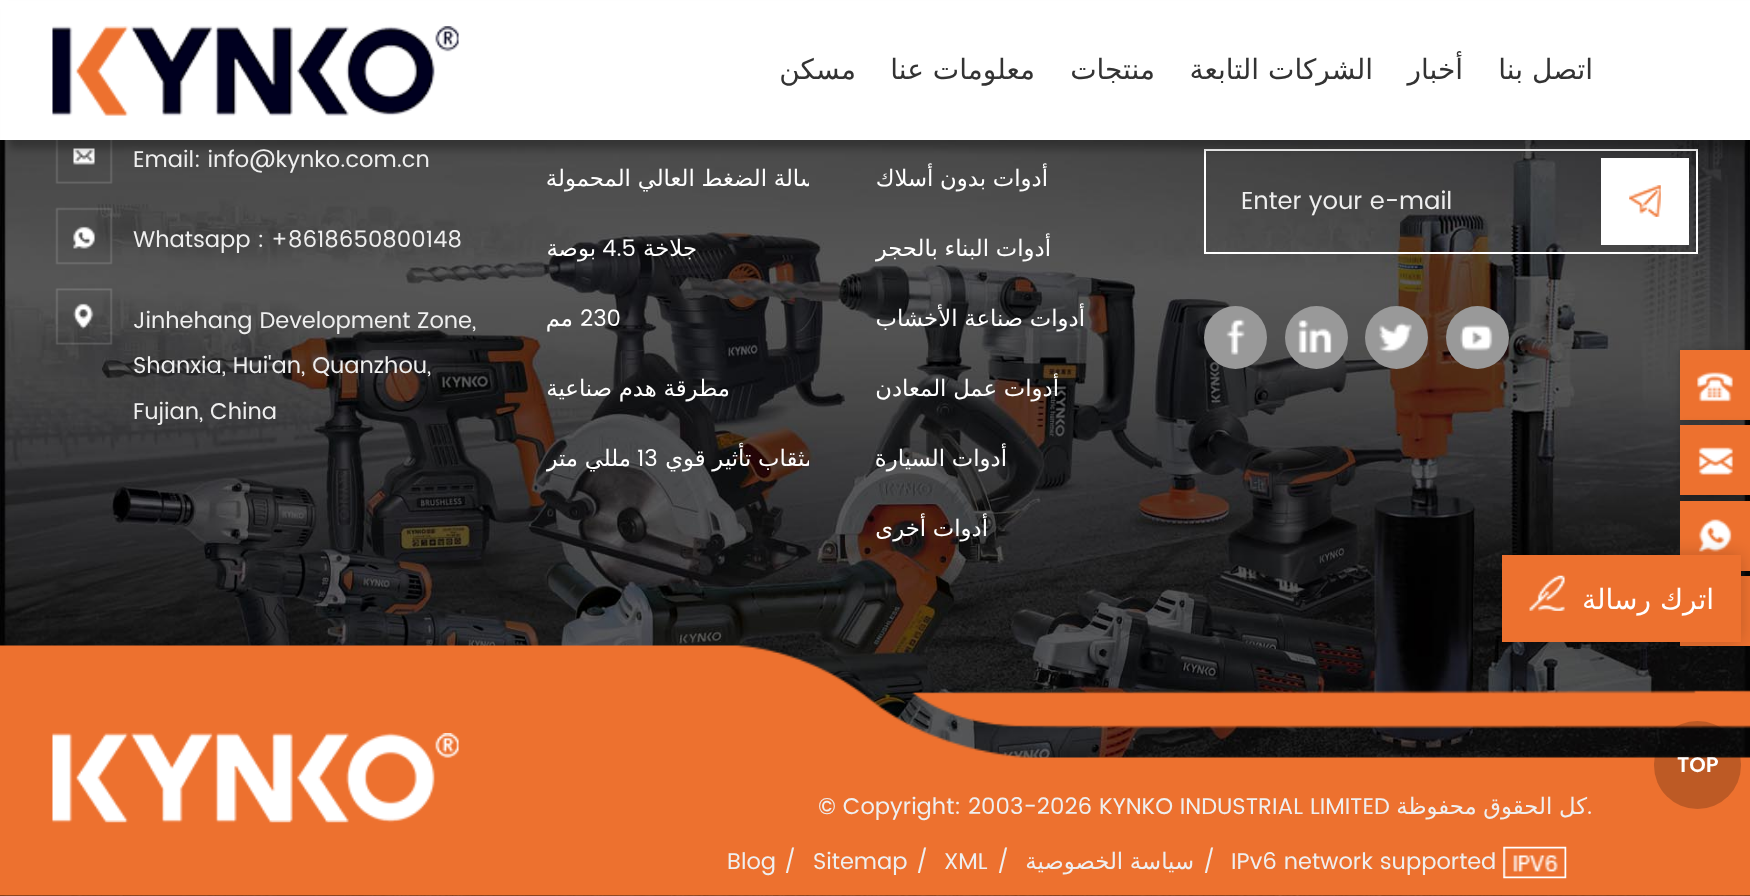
<svg xmlns="http://www.w3.org/2000/svg" width="1750" height="896" viewBox="0 0 1750 896">
  <defs>
    <filter id="blur1" x="-50%" y="-200%" width="200%" height="500%"><feGaussianBlur stdDeviation="4.5"/></filter>
    <clipPath id="clip1"><rect x="875" y="228" width="263" height="45"/></clipPath>
    <clipPath id="clip2"><rect x="546" y="158" width="263" height="45"/></clipPath>
    <clipPath id="clip3"><rect x="546" y="438" width="263" height="45"/></clipPath>
    <filter id="blur2" x="-50%" y="-200%" width="200%" height="500%"><feGaussianBlur stdDeviation="9"/></filter>
  </defs>
  <rect width="100%" height="100%" fill="#ffffff"/>
  <image x="0" y="140" width="1750" height="756" href="img5.png"/>
  <rect x="1205" y="150" width="492" height="103" fill="none" stroke="#ffffff" stroke-width="2"/>
  <rect x="1601" y="158" width="88" height="87" fill="#ffffff"/>
  <image x="55" y="140" width="58" height="44" href="img11.png"/>
  <rect x="9" y="9" width="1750" height="140" fill="#000000" fill-opacity="0.3" filter="url(#blur1)"/>
  <rect x="1" y="1" width="1749" height="139" fill="#ffffff"/>
  <text x="1593" y="79" font-family="DejaVu Sans" font-size="28" direction="rtl" fill="#333333">اتصل بنا</text>
  <text x="1463" y="79" font-family="DejaVu Sans" font-size="28" direction="rtl" fill="#333333">أخبار</text>
  <text x="1373" y="79" font-family="DejaVu Sans" font-size="28" direction="rtl" fill="#333333">الشركات التابعة</text>
  <text x="1155" y="79" font-family="DejaVu Sans" font-size="28" direction="rtl" fill="#333333">منتجات</text>
  <text x="1035" y="79" font-family="DejaVu Sans" font-size="28" direction="rtl" fill="#333333">معلومات عنا</text>
  <text x="856" y="79" font-family="DejaVu Sans" font-size="28" direction="rtl" fill="#333333">مسكن</text>
  <image x="52" y="26" width="407" height="90" href="img1.png"/>
  <rect x="1680" y="350" width="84" height="70" fill="#000000" fill-opacity="0.2" filter="url(#blur1)"/>
  <rect x="1680" y="350" width="70" height="70" fill="#ed712f"/>
  <image x="1697" y="372" width="36" height="30" href="img2.png"/>
  <rect x="1680" y="425" width="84" height="70" fill="#000000" fill-opacity="0.2" filter="url(#blur1)"/>
  <rect x="1680" y="425" width="70" height="70" fill="#ed712f"/>
  <image x="1698" y="447" width="35" height="28" href="img3.png"/>
  <rect x="1680" y="501" width="70" height="70" fill="#ed712f"/>
  <image x="1698" y="519" width="34" height="33" href="img4.png"/>
  <image x="0" y="645" width="1750" height="251" href="img14.png"/>
  <rect x="1680" y="576" width="70" height="70" fill="#ed712f"/>
  <image x="1629" y="185" width="32" height="32" href="img6.png"/>
  <text x="1241" y="209" font-family="Poppins" font-size="24.5" fill="#efefef">Enter your e-mail</text>
  <circle cx="1477.5" cy="337.5" r="31.5" fill="#999999"/>
  <image x="1460" y="324" width="33" height="27" href="img7.png"/>
  <circle cx="1396.5" cy="337.5" r="31.5" fill="#999999"/>
  <image x="1379" y="322" width="33" height="31" href="img8.png"/>
  <circle cx="1316.5" cy="337.5" r="31.5" fill="#999999"/>
  <image x="1298" y="320" width="34" height="33" href="img9.png"/>
  <circle cx="1235.5" cy="337.5" r="31.5" fill="#999999"/>
  <image x="1226" y="318" width="19" height="37" href="img10.png"/>
  <text x="1048" y="186" word-spacing="-0.5" font-family="DejaVu Sans" font-size="22.75" direction="rtl" fill="#ffffff">أدوات بدون أسلاك</text>
  <g clip-path="url(#clip1)">
    <text x="1051" y="256" word-spacing="-0.5" font-family="DejaVu Sans" font-size="22.75" direction="rtl" fill="#ffffff">أدوات البناء بالحجر</text>
  </g>
  <text x="1085" y="326" word-spacing="-0.5" font-family="DejaVu Sans" font-size="22.75" direction="rtl" fill="#ffffff">أدوات صناعة الأخشاب</text>
  <text x="1059" y="396" word-spacing="-0.5" font-family="DejaVu Sans" font-size="22.75" direction="rtl" fill="#ffffff">أدوات عمل المعادن</text>
  <text x="1007" y="466" word-spacing="-0.5" font-family="DejaVu Sans" font-size="22.75" direction="rtl" fill="#ffffff">أدوات السيارة</text>
  <text x="988" y="536" word-spacing="-0.5" font-family="DejaVu Sans" font-size="22.75" direction="rtl" fill="#ffffff">أدوات أخرى</text>
  <g clip-path="url(#clip2)">
    <text x="832" y="186" word-spacing="-0.5" font-family="DejaVu Sans" font-size="22.75" direction="rtl" fill="#ffffff">غسالة الضغط العالي المحمولة</text>
  </g>
  <text x="697" y="256" font-family="DejaVu Sans" font-size="22.75" direction="rtl" fill="#ffffff">جلاخة</text>
  <text x="602" y="256" font-family="Poppins" font-size="22.75" fill="#ffffff">4.5</text>
  <text x="596" y="256" font-family="DejaVu Sans" font-size="22.75" direction="rtl" fill="#ffffff">بوصة</text>
  <text x="580" y="326" font-family="Poppins" font-size="22.75" fill="#ffffff">230</text>
  <text x="573" y="326" font-family="DejaVu Sans" font-size="22.75" direction="rtl" fill="#ffffff">مم</text>
  <text x="730" y="396" word-spacing="-0.5" font-family="DejaVu Sans" font-size="22.75" direction="rtl" fill="#ffffff">مطرقة هدم صناعية</text>
  <g clip-path="url(#clip3)">
    <text x="817" y="466" word-spacing="-0.5" font-family="DejaVu Sans" font-size="22.75" direction="rtl" fill="#ffffff">مثقاب تأثير قوي</text>
  </g>
  <text x="637" y="466" font-family="Poppins" font-size="22.75" fill="#ffffff">13</text>
  <g clip-path="url(#clip3)">
    <text x="631" y="466" word-spacing="-0.5" font-family="DejaVu Sans" font-size="22.75" direction="rtl" fill="#ffffff">مللي متر</text>
  </g>
  <text x="133" y="167" font-family="Poppins" font-size="22.75" fill="#efefef">Email: info@kynko.com.cn</text>
  <text x="133" y="247" font-family="Poppins" font-size="22.75" fill="#efefef">Whatsapp : +8618650800148</text>
  <image x="55" y="207" width="58" height="58" href="img12.png"/>
  <text x="133" y="328" font-family="Poppins" font-size="22.75" fill="#efefef">Jinhehang Development Zone,</text>
  <image x="55" y="288" width="58" height="57" href="img13.png"/>
  <text x="133" y="373" font-family="Poppins" font-size="22.75" fill="#efefef">Shanxia, Hui'an, Quanzhou,</text>
  <text x="133" y="419" font-family="Poppins" font-size="22.75" fill="#efefef">Fujian, China</text>
  <text x="1587" y="814" word-spacing="-0.5" font-family="DejaVu Sans" font-size="22.75" direction="rtl" fill="#efefef">كل الحقوق محفوظة</text>
  <text x="1587" y="814" font-family="Poppins" font-size="22.75" fill="#efefef">.</text>
  <text x="818" y="814" font-family="Poppins" font-size="22.75" fill="#efefef">© Copyright: 2003-2026 KYNKO INDUSTRIAL LIMITED</text>
  <image x="52" y="733" width="407" height="90" href="img15.png"/>
  <image x="1503" y="846" width="64" height="33" href="img16.png"/>
  <text x="1231" y="869" font-family="Poppins" font-size="22.75" fill="#efefef">IPv6 network supported</text>
  <text x="1203" y="869" font-family="Poppins" font-size="22.75" fill="#efefef">/</text>
  <text x="1194" y="869" word-spacing="-0.5" font-family="DejaVu Sans" font-size="22.75" direction="rtl" fill="#efefef">سياسة الخصوصية</text>
  <text x="997" y="869" font-family="Poppins" font-size="22.75" fill="#efefef">/</text>
  <text x="944" y="869" font-family="Poppins" font-size="22.75" fill="#efefef">XML</text>
  <text x="916" y="869" font-family="Poppins" font-size="22.75" fill="#efefef">/</text>
  <text x="813" y="869" font-family="Poppins" font-size="22.75" fill="#efefef">Sitemap</text>
  <text x="784" y="869" font-family="Poppins" font-size="22.75" fill="#efefef">/</text>
  <text x="727" y="869" font-family="Poppins" font-size="22.75" fill="#efefef">Blog</text>
  <rect x="1502" y="555" width="239" height="87" fill="#000000" fill-opacity="0.2" filter="url(#blur2)"/>
  <rect x="1502" y="555" width="239" height="87" fill="#ed712f"/>
  <text x="1714" y="609" font-family="DejaVu Sans" font-size="28" direction="rtl" fill="#ffffff">اترك رسالة</text>
  <image x="1529" y="575" width="36" height="36" href="img17.png"/>
  <rect x="1654" y="721" width="87" height="88" rx="43.5" fill="#000000" fill-opacity="0.2"/>
  <text x="1677" y="772" font-family="Poppins" font-size="21" font-weight="600" fill="#ffffff">TOP</text>
</svg>
